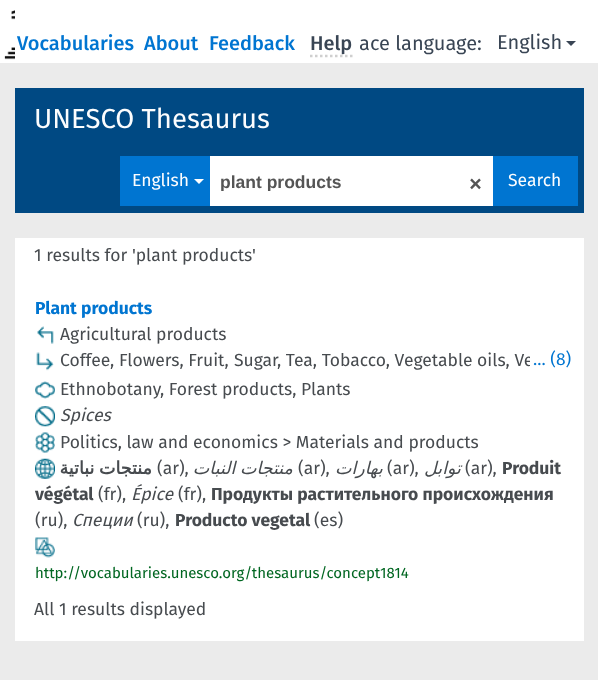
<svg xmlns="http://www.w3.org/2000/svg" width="598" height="680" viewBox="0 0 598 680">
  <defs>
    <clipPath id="clip1"><rect x="220" y="171" width="245" height="20"/></clipPath>
  </defs>
  <rect width="100%" height="100%" fill="#ebebeb"/>
  <rect x="0" y="0" width="598" height="63" fill="#ffffff"/>
  <image x="4" y="10" width="11" height="50" href="img1.png"/>
  <text x="359" y="50" font-family="Fira Sans" font-size="20" fill="#394554">ace language:</text>
  <rect x="359" y="45" width="1" height="4" fill="#ffffff"/>
  <text x="17" y="50" font-family="Fira Sans" font-size="20" font-weight="500" fill="#0075d1">Vocabularies</text>
  <text x="144" y="50" font-family="Fira Sans" font-size="20" font-weight="500" fill="#0075d1">About</text>
  <text x="209" y="50" font-family="Fira Sans" font-size="20" font-weight="500" fill="#0075d1">Feedback</text>
  <path d="M310 56H352.5" fill="none" stroke="#cfcfcf" stroke-width="2.5" stroke-dasharray="2.5 2.5"/>
  <text x="310" y="50" font-family="Fira Sans" font-size="20" font-weight="500" fill="#394554">Help</text>
  <text x="497" y="49" font-family="Fira Sans" font-size="20" fill="#394554">English</text>
  <path d="M566 41H576L571 46Z" fill="#394554"/>
  <rect x="15" y="88" width="569" height="125" fill="#004983"/>
  <text x="34" y="128" font-family="Fira Sans" font-size="27.5" fill="#fcfdfe">UNESCO Thesaurus</text>
  <rect x="120" y="156" width="90" height="50" fill="#0075d1"/>
  <text x="132" y="186" font-family="Fira Sans" font-size="17.5" fill="#fcfdfe">English</text>
  <path d="M194 179H204L199 184Z" fill="#ffffff"/>
  <rect x="210" y="156" width="283" height="50" fill="#ffffff"/>
  <g clip-path="url(#clip1)">
    <text x="220" y="188" font-family="Liberation Sans" font-size="17.5" font-weight="bold" fill="#555555">plant products</text>
  </g>
  <text x="468" y="193" font-family="Fira Sans" font-size="30" fill="#555555">×</text>
  <rect x="493" y="156" width="85" height="50" fill="#0075d1"/>
  <text x="508" y="186" font-family="Fira Sans" font-size="17.5" fill="#fcfdfe">Search</text>
  <rect x="15" y="238" width="569" height="403" fill="#ffffff"/>
  <text x="34" y="261" font-family="Fira Sans" font-size="17.5" fill="#474b4f">1 results for 'plant products'</text>
  <text x="35" y="314" font-family="Fira Sans" font-size="17.5" font-weight="bold" fill="#0075d1">Plant products</text>
  <image x="37" y="326" width="17" height="18" href="img2.png"/>
  <text x="60" y="340" font-family="Fira Sans" font-size="17.5" fill="#474b4f">Agricultural products</text>
  <image x="36" y="352" width="18" height="19" href="img3.png"/>
  <text x="60" y="366" font-family="Fira Sans" font-size="17.5" fill="#474b4f">Coffee, Flowers, Fruit,</text>
  <text x="234" y="366" font-family="Fira Sans" font-size="17.5" fill="#474b4f">Sugar</text>
  <text x="277" y="366" font-family="Fira Sans" font-size="17.5" fill="#474b4f">, Tea, Tobacco, Vegetable oils, Ve</text>
  <rect x="530" y="356" width="4" height="11" fill="#ffffff"/>
  <text x="533" y="365" font-family="Fira Sans" font-size="17.5" fill="#0075d1">... (8)</text>
  <image x="35" y="381" width="20" height="18" href="img4.png"/>
  <text x="60" y="395" font-family="Fira Sans" font-size="17.5" fill="#474b4f">Ethnobotany</text>
  <text x="160" y="395" font-family="Fira Sans" font-size="17.5" fill="#474b4f">, Forest products, Plants</text>
  <image x="35" y="406" width="20" height="21" href="img5.png"/>
  <text x="60" y="421" font-family="Fira Sans" font-size="17.5" font-style="italic" fill="#474b4f">Spices</text>
  <image x="35" y="432" width="20" height="21" href="img6.png"/>
  <text x="60" y="448" font-family="Fira Sans" font-size="17.5" fill="#474b4f">Politics, law and economics &gt; Materials and products</text>
  <image x="35" y="458" width="20" height="21" href="img7.png"/>
  <text x="152" y="474" word-spacing="-1" font-family="DejaVu Sans" font-size="17.5" font-weight="bold" direction="rtl" fill="#474b4f">منتجات نباتية</text>
  <text x="157" y="474" font-family="Fira Sans" font-size="17.5" fill="#474b4f">(ar),</text>
  <text x="293" y="474" word-spacing="-1" font-family="DejaVu Sans" font-size="17.5" font-style="italic" direction="rtl" fill="#474b4f">منتجات النبات</text>
  <text x="298" y="474" font-family="Fira Sans" font-size="17.5" fill="#474b4f">(ar),</text>
  <text x="383" y="474" font-family="DejaVu Sans" font-size="17.5" font-style="italic" direction="rtl" fill="#474b4f">بهارات</text>
  <text x="387" y="474" font-family="Fira Sans" font-size="17.5" fill="#474b4f">(ar),</text>
  <text x="461" y="474" font-family="DejaVu Sans" font-size="17.5" font-style="italic" direction="rtl" fill="#474b4f">توابل</text>
  <text x="465" y="474" font-family="Fira Sans" font-size="17.5" fill="#474b4f">(ar),</text>
  <text x="502" y="474" font-family="Fira Sans" font-size="17.5" font-weight="bold" fill="#474b4f">Produit</text>
  <text x="35" y="500" font-family="Fira Sans" font-size="17.5" font-weight="bold" fill="#474b4f">végétal</text>
  <text x="98" y="500" font-family="Fira Sans" font-size="17.5" fill="#474b4f">(fr),</text>
  <text x="131" y="500" font-family="Fira Sans" font-size="17.5" font-style="italic" fill="#474b4f">Épice</text>
  <text x="178" y="500" font-family="Fira Sans" font-size="17.5" fill="#474b4f">(fr),</text>
  <text x="211" y="500" font-family="Fira Sans" font-size="17.5" font-weight="bold" fill="#474b4f">Продукты растительного происхождения</text>
  <text x="35" y="526" font-family="Fira Sans" font-size="17.5" fill="#474b4f">(ru),</text>
  <text x="72" y="526" font-family="Fira Sans" font-size="17.5" font-style="italic" fill="#474b4f">Специи</text>
  <text x="137" y="526" font-family="Fira Sans" font-size="17.5" fill="#474b4f">(ru),</text>
  <text x="175" y="526" font-family="Fira Sans" font-size="17.5" font-weight="bold" fill="#474b4f">Producto vegetal</text>
  <text x="314" y="526" font-family="Fira Sans" font-size="17.5" fill="#474b4f">(es)</text>
  <image x="35" y="537" width="20" height="21" href="img8.png"/>
  <text x="35" y="578" font-family="Fira Sans" font-size="15" fill="#006621">http://vocabularies.unesco.org/thesaurus/concept1814</text>
  <text x="34" y="615" font-family="Fira Sans" font-size="17.5" fill="#474b4f">All 1 results displayed</text>
</svg>
